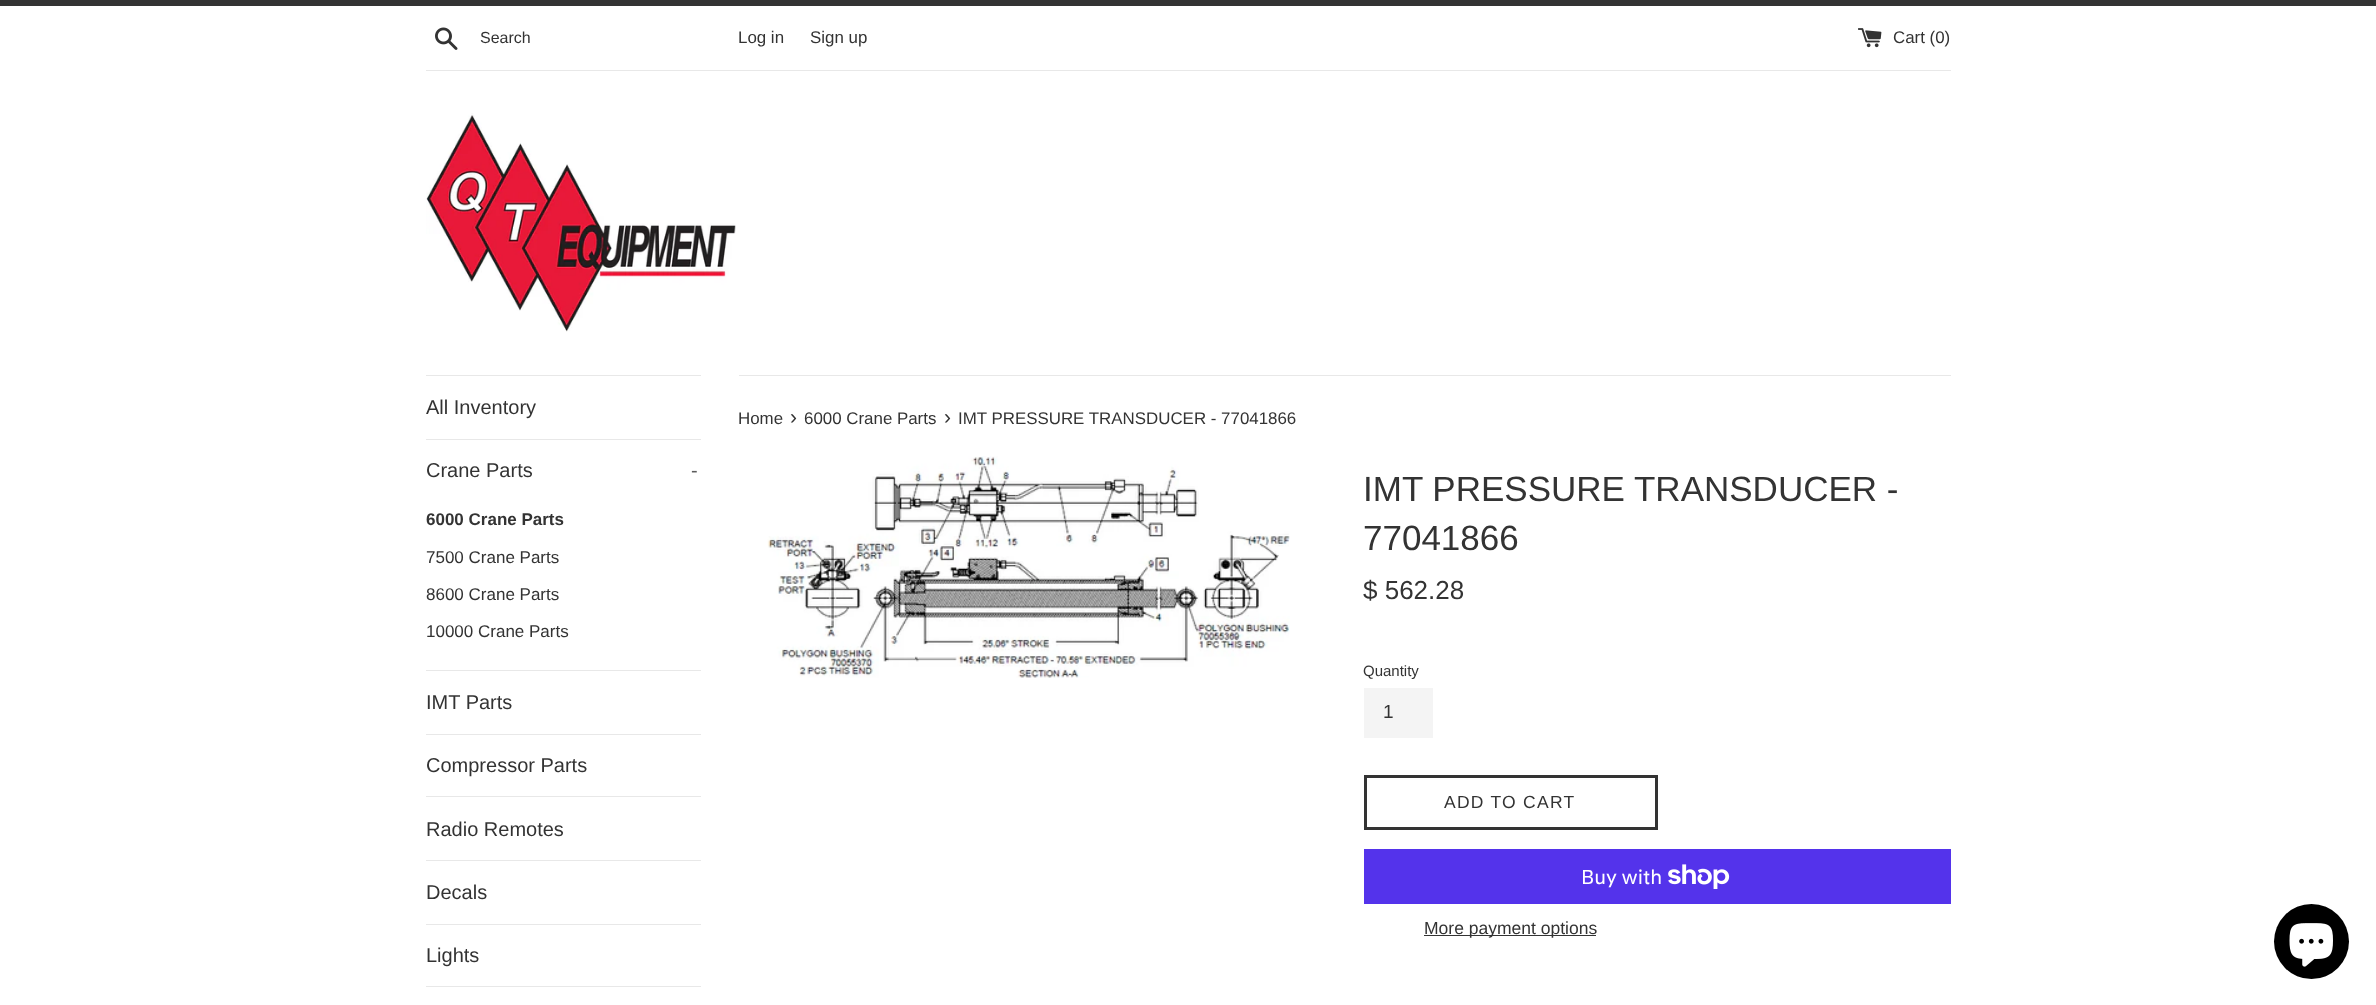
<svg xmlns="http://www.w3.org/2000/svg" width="2376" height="1005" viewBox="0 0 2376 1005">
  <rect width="100%" height="100%" fill="#ffffff"/>
  <rect x="0" y="0" width="2376" height="6" fill="#333333"/>
  <image x="435" y="27" width="23" height="23" href="img1.png"/>
  <text x="480" y="43" font-family="Liberation Sans" font-size="16" fill="#333333">Search</text>
  <text x="738" y="43" font-family="Liberation Sans" font-size="16.9" fill="#333333">Log in</text>
  <text x="810" y="43" font-family="Liberation Sans" font-size="16.9" fill="#333333">Sign up</text>
  <image x="1858" y="28" width="24" height="20" href="img2.png"/>
  <text x="1893" y="43" font-family="Liberation Sans" font-size="16.9" fill="#333333">Cart (0)</text>
  <rect x="426" y="70" width="1525" height="1" fill="#e8e8e8"/>
  <image x="426" y="113" width="310" height="219" href="img3.png"/>
  <rect x="426" y="375" width="275" height="1" fill="#e8e8e8"/>
  <rect x="426" y="439" width="275" height="1" fill="#e8e8e8"/>
  <text x="426" y="414" font-family="Liberation Sans" font-size="20" fill="#333333">All Inventory</text>
  <rect x="426" y="670" width="275" height="1" fill="#e8e8e8"/>
  <text x="426" y="477" font-family="Liberation Sans" font-size="20" fill="#333333">Crane Parts</text>
  <text x="691" y="477" font-family="Liberation Sans" font-size="20" fill="#5c5c5c">-</text>
  <text x="426" y="525" font-family="Liberation Sans" font-size="17" font-weight="bold" fill="#333333">6000 Crane Parts</text>
  <text x="426" y="563" font-family="Liberation Sans" font-size="17" fill="#333333">7500 Crane Parts</text>
  <text x="426" y="600" font-family="Liberation Sans" font-size="17" fill="#333333">8600 Crane Parts</text>
  <text x="426" y="637" font-family="Liberation Sans" font-size="17" fill="#333333">10000 Crane Parts</text>
  <rect x="426" y="734" width="275" height="1" fill="#e8e8e8"/>
  <text x="426" y="709" font-family="Liberation Sans" font-size="20" fill="#333333">IMT Parts</text>
  <rect x="426" y="796" width="275" height="1" fill="#e8e8e8"/>
  <text x="426" y="772" font-family="Liberation Sans" font-size="20" fill="#333333">Compressor Parts</text>
  <rect x="426" y="860" width="275" height="1" fill="#e8e8e8"/>
  <text x="426" y="836" font-family="Liberation Sans" font-size="20" fill="#333333">Radio Remotes</text>
  <rect x="426" y="924" width="275" height="1" fill="#e8e8e8"/>
  <text x="426" y="899" font-family="Liberation Sans" font-size="20" fill="#333333">Decals</text>
  <rect x="426" y="986" width="275" height="1" fill="#e8e8e8"/>
  <text x="426" y="962" font-family="Liberation Sans" font-size="20" fill="#333333">Lights</text>
  <rect x="739" y="375" width="1212" height="1" fill="#e8e8e8"/>
  <text x="738" y="424" font-family="Liberation Sans" font-size="16.9" fill="#333333">Home</text>
  <text x="790" y="424" font-family="Liberation Sans" font-size="21" fill="#333333">›</text>
  <text x="804" y="424" font-family="Liberation Sans" font-size="16.9" fill="#333333">6000 Crane Parts</text>
  <text x="944" y="424" font-family="Liberation Sans" font-size="21" fill="#333333">›</text>
  <text x="958" y="424" font-family="Liberation Sans" font-size="16.9" fill="#333333">IMT PRESSURE TRANSDUCER - 77041866</text>
  <image x="767" y="456" width="523" height="222" href="img4.png"/>
  <text x="1363" y="501" font-family="Liberation Sans" font-size="35" fill="#333333">IMT PRESSURE TRANSDUCER -</text>
  <text x="1363" y="550" font-family="Liberation Sans" font-size="35" fill="#333333">77041866</text>
  <text x="1363" y="599" font-family="Liberation Sans" font-size="26" fill="#333333">$ 562.28</text>
  <text x="1363" y="676" font-family="Liberation Sans" font-size="15" fill="#333333">Quantity</text>
  <rect x="1364" y="688" width="69" height="50" fill="#f4f4f4"/>
  <text x="1383" y="718" font-family="Liberation Sans" font-size="19" fill="#333333">1</text>
  <rect x="1365.5" y="776.5" width="291" height="52" fill="none" stroke="#333333" stroke-width="3"/>
  <text x="1444" y="808" font-family="Liberation Sans" font-size="17.5" letter-spacing="1.25" fill="#333333">ADD TO CART</text>
  <rect x="1364" y="849" width="587" height="55" fill="#5433eb"/>
  <text x="1581" y="884" font-family="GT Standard" font-size="20" fill="#ffffff">Buy with</text>
  <image x="1668" y="864" width="62" height="25" href="img5.png"/>
  <rect x="1424" y="935" width="172" height="1" fill="#333333"/>
  <text x="1424" y="934" font-family="Liberation Sans" font-size="17.5" fill="#333333">More payment options</text>
  <circle cx="2311.5" cy="941.5" r="37.5" fill="#000000"/>
  <image x="2289" y="923" width="44" height="44" href="img6.png"/>
</svg>
